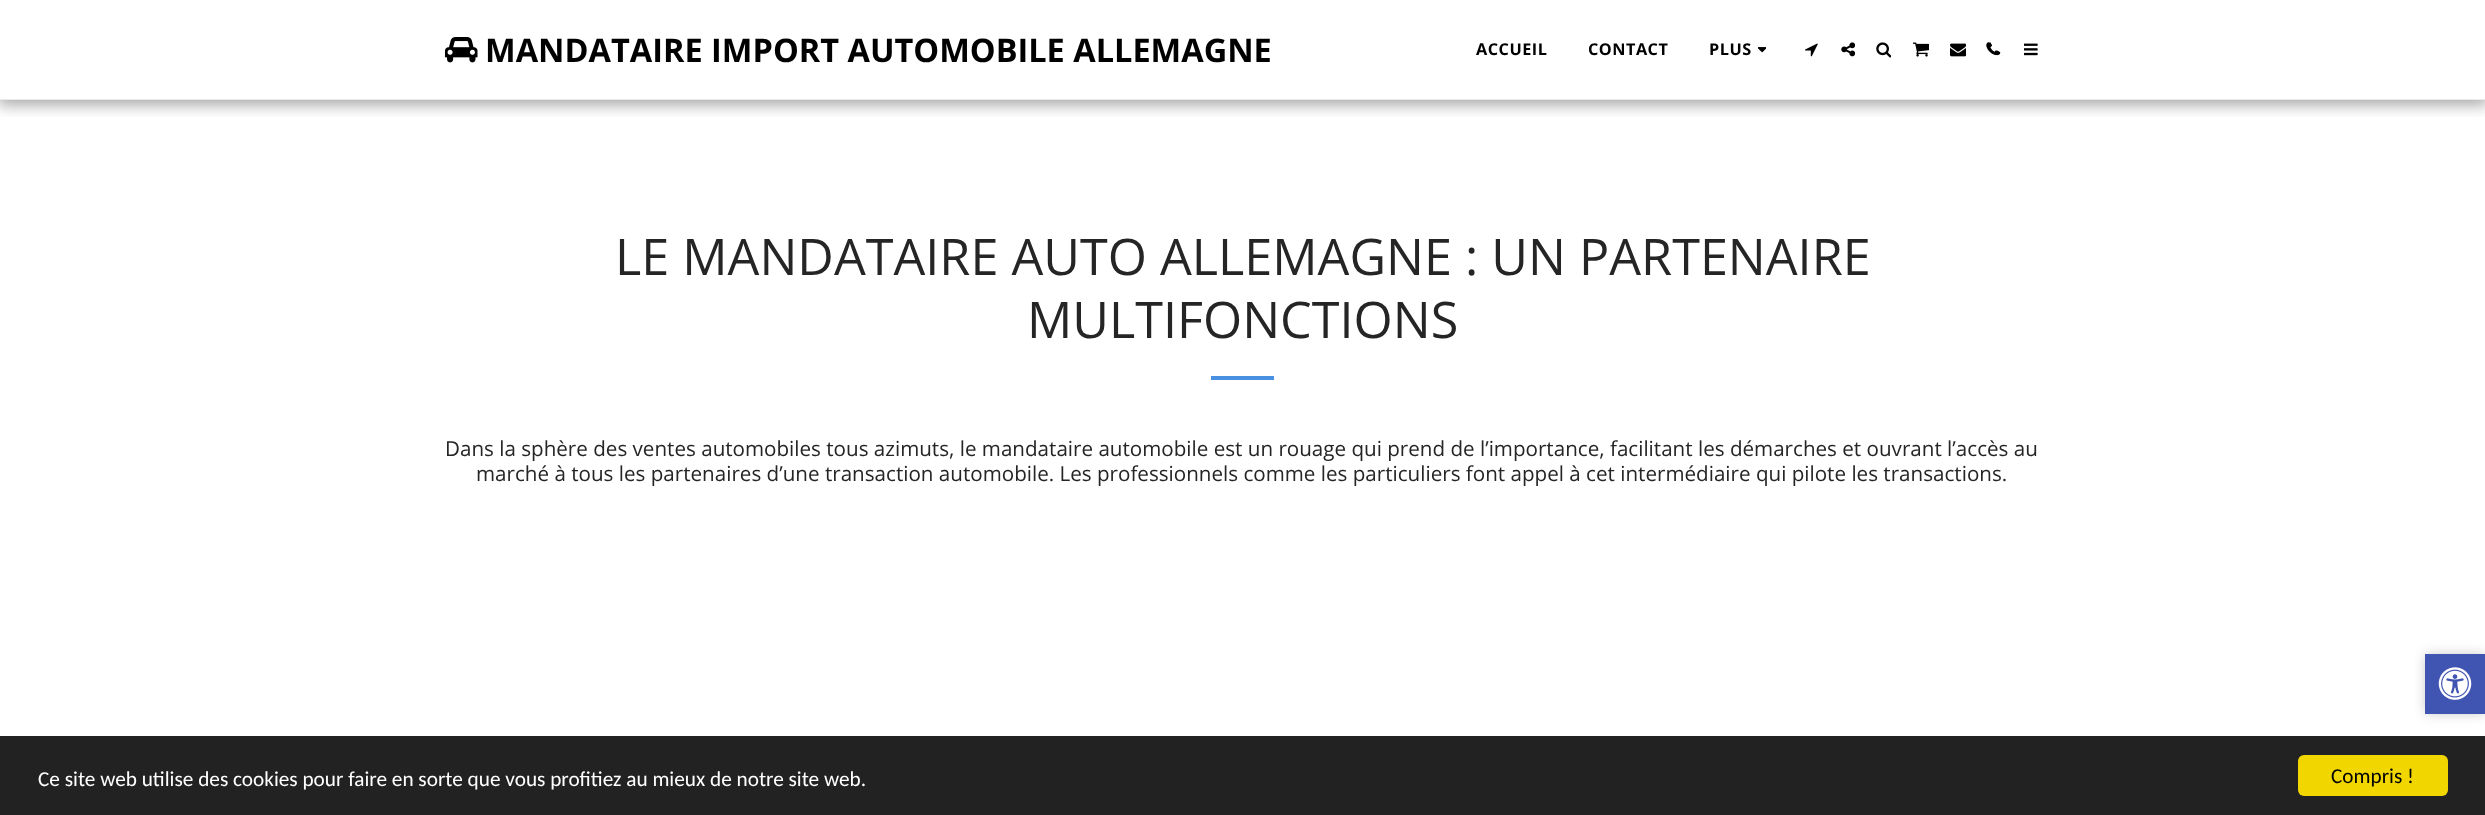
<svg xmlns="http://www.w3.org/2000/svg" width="2485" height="815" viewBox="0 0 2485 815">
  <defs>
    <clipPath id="clip1"><rect x="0" y="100" width="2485" height="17"/></clipPath>
    <filter id="blur1" x="-50%" y="-200%" width="200%" height="500%"><feGaussianBlur stdDeviation="7.5"/></filter>
    <filter id="blur2" x="-50%" y="-200%" width="200%" height="500%"><feGaussianBlur stdDeviation="6"/></filter>
  </defs>
  <rect width="100%" height="100%" fill="#ffffff"/>
  <g clip-path="url(#clip1)">
    <rect x="-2" y="0" width="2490" height="105" fill="#000000" fill-opacity="0.35" filter="url(#blur1)"/>
  </g>
  <rect x="0" y="99" width="2485" height="1" fill="#ebebeb"/>
  <image x="445" y="37" width="33" height="26" href="img1.png"/>
  <text x="485" y="62" font-family="Open Sans" font-size="32.5" font-weight="bold" fill="#000000">MANDATAIRE IMPORT AUTOMOBILE ALLEMAGNE</text>
  <text x="1476" y="55" font-family="Open Sans" font-size="16.25" font-weight="bold" letter-spacing="0.5" fill="#000000">ACCUEIL</text>
  <text x="1588" y="55" font-family="Open Sans" font-size="16.25" font-weight="bold" letter-spacing="0.5" fill="#000000">CONTACT</text>
  <text x="1709" y="55" font-family="Open Sans" font-size="16.25" font-weight="bold" letter-spacing="0.5" fill="#000000">PLUS</text>
  <image x="1758" y="47" width="8" height="6" href="img2.png"/>
  <image x="1805" y="43" width="13" height="14" href="img3.png"/>
  <image x="1841" y="42" width="14" height="15" href="img4.png"/>
  <image x="1876" y="42" width="15" height="16" href="img5.png"/>
  <image x="1913" y="42" width="16" height="15" href="img6.png"/>
  <image x="1950" y="43" width="16" height="14" href="img7.png"/>
  <image x="1988" y="42" width="13" height="14" href="img8.png"/>
  <image x="1986" y="42" width="13" height="13" href="img9.png"/>
  <image x="2024" y="43" width="14" height="13" href="img10.png"/>
  <text x="615" y="275" font-family="Open Sans" font-size="50.35" fill="#252525">LE MANDATAIRE AUTO ALLEMAGNE : UN PARTENAIRE</text>
  <text x="1027" y="338" font-family="Open Sans" font-size="50.35" fill="#252525">MULTIFONCTIONS</text>
  <rect x="1211" y="376" width="63" height="4" fill="#4a90e2"/>
  <text x="445" y="456" font-family="Open Sans" font-size="20.62" fill="#252525">Dans la sphère des ventes automobiles tous azimuts, le mandataire automobile est un rouage qui prend de l’importance, facilitant les démarches et ouvrant l’accès au</text>
  <text x="476" y="481" font-family="Open Sans" font-size="20.62" fill="#252525">marché à tous les partenaires d’une transaction automobile. Les professionnels comme les particuliers font appel à cet intermédiaire qui pilote les transactions.</text>
  <rect x="0" y="736" width="2485" height="79" fill="#222222"/>
  <text x="38" y="786" font-family="Carlito" font-size="21.25" fill="#ffffff">Ce site web utilise des cookies pour faire en sorte que vous profitiez au mieux de notre site web.</text>
  <rect x="2298" y="755" width="150" height="41" rx="6" fill="#f1d600"/>
  <text x="2331" y="783" font-family="Carlito" font-size="21.25" fill="#000000">Compris !</text>
  <rect x="2425" y="654" width="60" height="60" fill="#000000" fill-opacity="0.2" filter="url(#blur2)"/>
  <rect x="2425" y="654" width="60" height="60" fill="#4054b2"/>
  <image x="2438" y="667" width="34" height="33" href="img11.png"/>
</svg>
